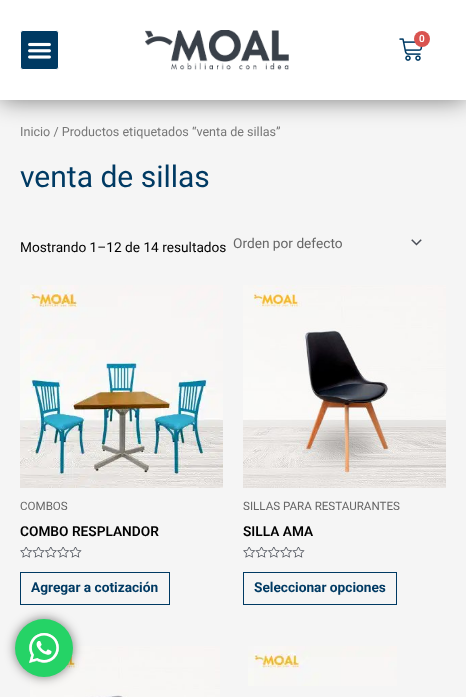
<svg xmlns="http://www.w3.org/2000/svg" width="466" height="697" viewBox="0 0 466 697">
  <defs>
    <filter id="blur1" x="-50%" y="-200%" width="200%" height="500%"><feGaussianBlur stdDeviation="12.5"/></filter>
    <filter id="blur2" x="-50%" y="-200%" width="200%" height="500%"><feGaussianBlur stdDeviation="5.5"/></filter>
  </defs>
  <rect width="100%" height="100%" fill="#f5f5f5"/>
  <rect x="0" y="0" width="466" height="100" fill="#000000" fill-opacity="0.5" filter="url(#blur1)"/>
  <rect x="0" y="0" width="466" height="100" fill="#ffffff"/>
  <rect x="20.5" y="30.5" width="38" height="39" rx="2.5" fill="#003a63" stroke="#ffffff"/>
  <image x="28" y="42" width="23" height="17" href="img1.png"/>
  <image x="145" y="30" width="144" height="40" href="img2.png"/>
  <image x="399" y="38" width="24" height="23" href="img3.png"/>
  <circle cx="422" cy="39" r="8" fill="#d9534f"/>
  <text x="419" y="42" font-family="Roboto" font-size="10" font-weight="600" fill="#ffffff">0</text>
  <text x="20" y="136" font-family="Roboto" font-size="12.6" fill="#777777">Inicio / Productos etiquetados “venta de sillas”</text>
  <text x="20" y="187" font-family="Roboto" font-size="30" fill="#003a63">venta de sillas</text>
  <text x="20" y="252" font-family="Roboto" font-size="13.7" fill="#000000">Mostrando 1–12 de 14 resultados</text>
  <image x="411" y="239" width="11" height="7" href="img4.png"/>
  <text x="233" y="248" font-family="Roboto" font-size="13.7" fill="#666666">Orden por defecto</text>
  <image x="20" y="285" width="203" height="203" href="img5.png"/>
  <text x="20" y="510" font-family="Roboto" font-size="11.6" fill="#666666">COMBOS</text>
  <text x="20" y="536" font-family="Roboto" font-size="13.7" font-weight="600" fill="#000000">COMBO RESPLANDOR</text>
  <image x="20" y="547" width="62" height="11" href="img6.png"/>
  <rect x="20.5" y="572.5" width="149" height="32" fill="none" stroke="#003a63"/>
  <text x="31" y="592" font-family="Roboto" font-size="13.7" font-weight="bold" fill="#003a63">Agregar a cotización</text>
  <image x="243" y="285" width="203" height="203" href="img7.png"/>
  <text x="243" y="510" font-family="Roboto" font-size="11.6" fill="#666666">SILLAS PARA RESTAURANTES</text>
  <text x="243" y="536" font-family="Roboto" font-size="13.7" font-weight="600" fill="#000000">SILLA AMA</text>
  <image x="243" y="547" width="62" height="11" href="img6.png"/>
  <rect x="243.5" y="572.5" width="153" height="32" fill="none" stroke="#003a63"/>
  <text x="254" y="592" font-family="Roboto" font-size="13.7" font-weight="bold" fill="#003a63">Seleccionar opciones</text>
  <image x="30" y="646" width="190" height="51" href="img8.png"/>
  <image x="248" y="646" width="149" height="40" href="img9.png"/>
  <rect x="15" y="619" width="58" height="58" rx="29" fill="#000000" fill-opacity="0.5" filter="url(#blur2)"/>
  <circle cx="44" cy="648" r="29" fill="#25d366"/>
  <image x="29" y="633" width="30" height="30" href="img10.png"/>
</svg>
